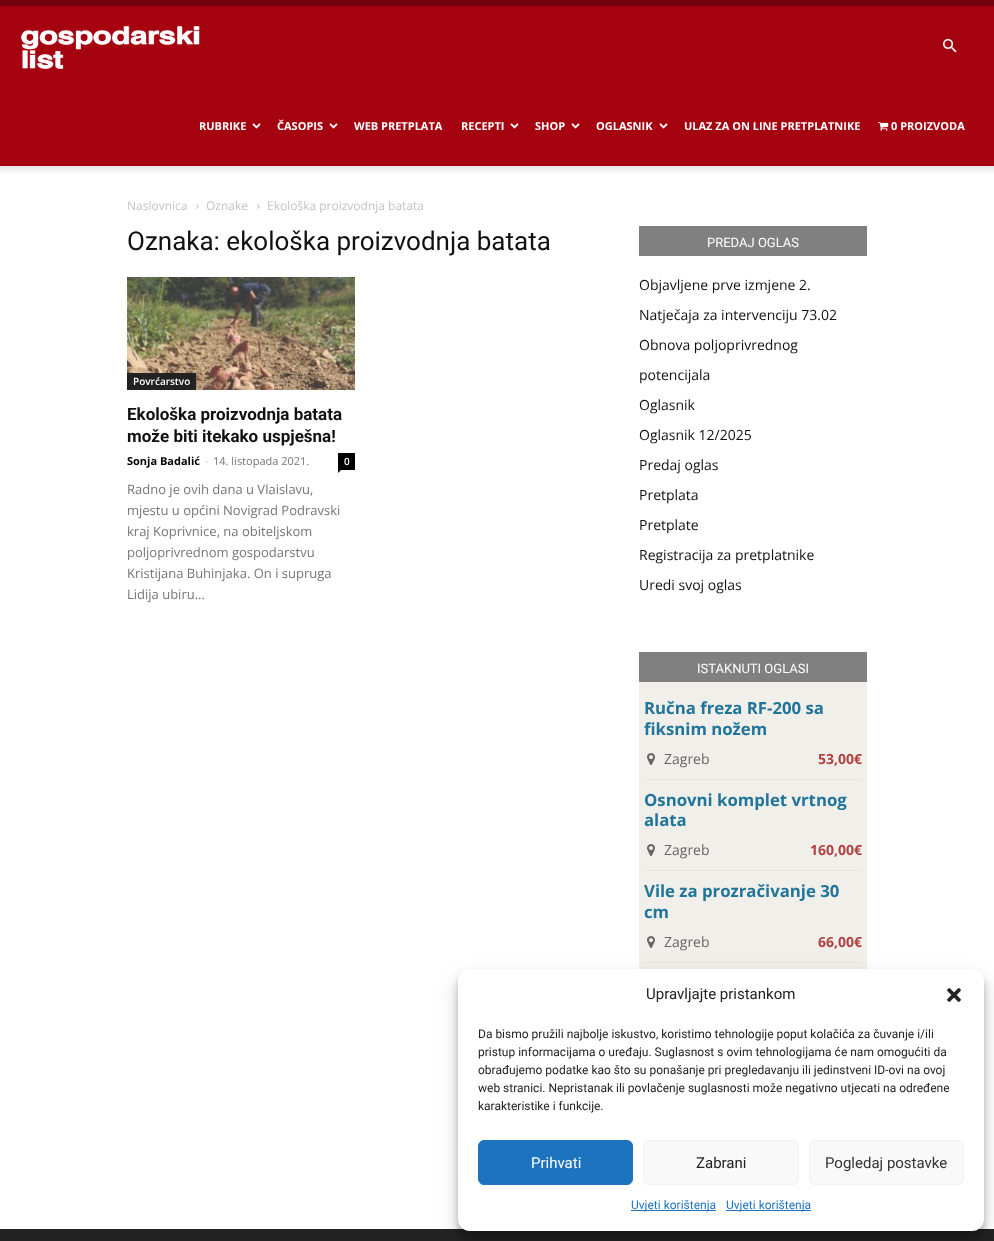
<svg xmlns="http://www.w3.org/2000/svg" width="994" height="1241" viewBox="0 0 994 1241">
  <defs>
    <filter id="blur1" x="-50%" y="-200%" width="200%" height="500%"><feGaussianBlur stdDeviation="3"/></filter>
    <filter id="blur2" x="-50%" y="-200%" width="200%" height="500%"><feGaussianBlur stdDeviation="10"/></filter>
  </defs>
  <rect width="100%" height="100%" fill="#ffffff"/>
  <rect x="0" y="0" width="994" height="6" fill="#73020c"/>
  <rect x="0" y="6" width="994" height="160" fill="#a60311"/>
  <image x="943" y="38" width="14" height="15" href="img1.png"/>
  <image x="20" y="26" width="180" height="43" href="img2.png"/>
  <text x="199" y="130" font-family="Open Sans" font-size="11" font-weight="bold" fill="#ffffff">RUBRIKE</text>
  <image x="252" y="123" width="9" height="6" href="img3.png"/>
  <text x="277" y="130" font-family="Open Sans" font-size="11" font-weight="bold" fill="#ffffff">ČASOPIS</text>
  <image x="329" y="123" width="9" height="6" href="img3.png"/>
  <text x="354" y="130" font-family="Open Sans" font-size="11" font-weight="bold" fill="#ffffff">WEB PRETPLATA</text>
  <text x="461" y="130" font-family="Open Sans" font-size="11" font-weight="bold" fill="#ffffff">RECEPTI</text>
  <image x="510" y="123" width="9" height="6" href="img3.png"/>
  <text x="535" y="130" font-family="Open Sans" font-size="11" font-weight="bold" fill="#ffffff">SHOP</text>
  <image x="571" y="123" width="9" height="6" href="img3.png"/>
  <text x="596" y="130" font-family="Open Sans" font-size="11" font-weight="bold" fill="#ffffff">OGLASNIK</text>
  <image x="659" y="123" width="9" height="6" href="img3.png"/>
  <text x="684" y="130" font-family="Open Sans" font-size="11" font-weight="bold" fill="#ffffff">ULAZ ZA ON LINE PRETPLATNIKE</text>
  <image x="878" y="122" width="11" height="9" href="img4.png"/>
  <text x="891" y="130" font-family="Open Sans" font-size="11" font-weight="bold" fill="#ffffff">0 PROIZVODA</text>
  <image x="0" y="166" width="994" height="9" href="img5.png"/>
  <text x="127" y="210" font-family="Open Sans" font-size="12" fill="#c3c3c3">Naslovnica</text>
  <image x="196" y="204" width="3" height="5" href="img6.png"/>
  <text x="206" y="210" font-family="Open Sans" font-size="12" fill="#c3c3c3">Oznake</text>
  <image x="257" y="204" width="3" height="5" href="img6.png"/>
  <text x="267" y="210" font-family="Open Sans" font-size="12" fill="#c3c3c3">Ekološka proizvodnja batata</text>
  <text x="127" y="250" font-family="Roboto" font-size="26" fill="#111111">Oznaka: ekološka proizvodnja batata</text>
  <image x="127" y="277" width="228" height="113" href="img7.png"/>
  <rect x="127" y="373" width="69" height="17" fill="#222222"/>
  <text x="133" y="385" font-family="Open Sans" font-size="10" font-weight="600" fill="#ffffff">Povrćarstvo</text>
  <text x="127" y="420" font-family="Roboto" font-size="17" font-weight="bold" fill="#111111">Ekološka proizvodnja batata</text>
  <text x="127" y="442" font-family="Roboto" font-size="17" font-weight="bold" fill="#111111">može biti itekako uspješna!</text>
  <text x="127" y="465" font-family="Open Sans" font-size="11" font-weight="bold" fill="#000000">Sonja Badalić</text>
  <text x="205" y="465" font-family="Open Sans" font-size="11" fill="#cccccc">-</text>
  <text x="213" y="465" font-family="Open Sans" font-size="11" fill="#767676">14. listopada 2021.</text>
  <rect x="338" y="453" width="17" height="17" fill="#000000"/>
  <text x="344" y="465" font-family="Open Sans" font-size="10" font-weight="600" fill="#ffffff">0</text>
  <path d="M338 470H341L338 473Z" fill="#000000"/>
  <text x="127" y="494" font-family="Open Sans" font-size="13" fill="#767676">Radno je ovih dana u Vlaislavu,</text>
  <text x="127" y="515" font-family="Open Sans" font-size="13" fill="#767676">mjestu u općini Novigrad Podravski</text>
  <text x="127" y="536" font-family="Open Sans" font-size="13" fill="#767676">kraj Koprivnice, na obiteljskom</text>
  <text x="127" y="557" font-family="Open Sans" font-size="13" fill="#767676">poljoprivrednom gospodarstvu</text>
  <text x="127" y="578" font-family="Open Sans" font-size="13" fill="#767676">Kristijana Buhinjaka. On i supruga</text>
  <text x="127" y="599" font-family="Open Sans" font-size="13" fill="#767676">Lidija ubiru...</text>
  <rect x="639" y="226" width="228" height="30" fill="#808080"/>
  <text x="707" y="247" font-family="Roboto" font-size="13" fill="#ffffff">PREDAJ OGLAS</text>
  <text x="639" y="290" font-family="Open Sans" font-size="14" fill="#111111">Objavljene prve izmjene 2.</text>
  <text x="639" y="320" font-family="Open Sans" font-size="14" fill="#111111">Natječaja za intervenciju 73.02</text>
  <text x="639" y="350" font-family="Open Sans" font-size="14" fill="#111111">Obnova poljoprivrednog</text>
  <text x="639" y="380" font-family="Open Sans" font-size="14" fill="#111111">potencijala</text>
  <text x="639" y="410" font-family="Open Sans" font-size="14" fill="#111111">Oglasnik</text>
  <text x="639" y="440" font-family="Open Sans" font-size="14" fill="#111111">Oglasnik 12/2025</text>
  <text x="639" y="470" font-family="Open Sans" font-size="14" fill="#111111">Predaj oglas</text>
  <text x="639" y="500" font-family="Open Sans" font-size="14" fill="#111111">Pretplata</text>
  <text x="639" y="530" font-family="Open Sans" font-size="14" fill="#111111">Pretplate</text>
  <text x="639" y="560" font-family="Open Sans" font-size="14" fill="#111111">Registracija za pretplatnike</text>
  <text x="639" y="590" font-family="Open Sans" font-size="14" fill="#111111">Uredi svoj oglas</text>
  <rect x="639" y="682" width="228" height="287" fill="#f0efe9"/>
  <rect x="639" y="652" width="228" height="30" fill="#808080"/>
  <text x="697" y="673" font-family="Roboto" font-size="13" fill="#ffffff">ISTAKNUTI OGLASI</text>
  <rect x="644" y="779" width="218" height="1" fill="#e5e5e5"/>
  <text x="644" y="714" font-family="Open Sans" font-size="16.75" font-weight="bold" fill="#21759b">Ručna freza RF-200 sa</text>
  <text x="644" y="735" font-family="Open Sans" font-size="16.75" font-weight="bold" fill="#21759b">fiksnim nožem</text>
  <image x="647" y="753" width="8" height="12" href="img8.png"/>
  <text x="664" y="764" font-family="Open Sans" font-size="14" fill="#666666">Zagreb</text>
  <text x="818" y="764" font-family="Open Sans" font-size="14" font-weight="bold" fill="#b34040">53,00€</text>
  <rect x="644" y="870" width="218" height="1" fill="#e5e5e5"/>
  <text x="644" y="806" font-family="Open Sans" font-size="16.75" font-weight="bold" fill="#21759b">Osnovni komplet vrtnog</text>
  <text x="644" y="826" font-family="Open Sans" font-size="16.75" font-weight="bold" fill="#21759b">alata</text>
  <image x="647" y="844" width="8" height="12" href="img8.png"/>
  <text x="664" y="855" font-family="Open Sans" font-size="14" fill="#666666">Zagreb</text>
  <text x="810" y="855" font-family="Open Sans" font-size="14" font-weight="bold" fill="#b34040">160,00€</text>
  <rect x="644" y="962" width="218" height="1" fill="#e5e5e5"/>
  <text x="644" y="897" font-family="Open Sans" font-size="16.75" font-weight="bold" fill="#21759b">Vile za prozračivanje 30</text>
  <text x="644" y="918" font-family="Open Sans" font-size="16.75" font-weight="bold" fill="#21759b">cm</text>
  <image x="647" y="936" width="8" height="12" href="img8.png"/>
  <text x="664" y="947" font-family="Open Sans" font-size="14" fill="#666666">Zagreb</text>
  <text x="818" y="947" font-family="Open Sans" font-size="14" font-weight="bold" fill="#b34040">66,00€</text>
  <rect x="0" y="1229" width="994" height="12" fill="#222222"/>
  <rect x="458" y="975" width="526" height="262" rx="12" fill="#000000" fill-opacity="0.23" filter="url(#blur1)"/>
  <rect x="458" y="979" width="526" height="262" rx="12" fill="#000000" fill-opacity="0.19" filter="url(#blur2)"/>
  <rect x="458" y="969" width="526" height="262" rx="12" fill="#ffffff"/>
  <text x="646" y="999" font-family="Roboto" font-size="15" fill="#222222">Upravljajte pristankom</text>
  <image x="947" y="988" width="14" height="14" href="img9.png"/>
  <text x="478" y="1038" font-family="Roboto" font-size="12" fill="#222222">Da bismo pružili najbolje iskustvo, koristimo tehnologije poput kolačića za čuvanje i/ili</text>
  <text x="478" y="1056" font-family="Roboto" font-size="12" fill="#222222">pristup informacijama o uređaju. Suglasnost s ovim tehnologijama će nam omogućiti da</text>
  <text x="478" y="1074" font-family="Roboto" font-size="12" fill="#222222">obrađujemo podatke kao što su ponašanje pri pregledavanju ili jedinstveni ID-ovi na ovoj</text>
  <text x="478" y="1092" font-family="Roboto" font-size="12" fill="#222222">web stranici. Nepristanak ili povlačenje suglasnosti može negativno utjecati na određene</text>
  <text x="478" y="1110" font-family="Roboto" font-size="12" fill="#222222">karakteristike i funkcije.</text>
  <rect x="478.5" y="1140.5" width="154" height="44" rx="5.5" fill="#1e73be" stroke="#1e73be"/>
  <text x="531" y="1168" font-family="Roboto" font-size="15" fill="#ffffff">Prihvati</text>
  <rect x="643.5" y="1140.5" width="155" height="44" rx="5.5" fill="#f9f9f9" stroke="#f2f2f2"/>
  <text x="696" y="1168" font-family="Roboto" font-size="15" fill="#222222">Zabrani</text>
  <rect x="809.5" y="1140.5" width="154" height="44" rx="5.5" fill="#f9f9f9" stroke="#f2f2f2"/>
  <text x="825" y="1168" font-family="Roboto" font-size="15" fill="#333333">Pogledaj postavke</text>
  <rect x="631" y="1210" width="85" height="1" fill="#1e73be"/>
  <text x="631" y="1209" font-family="Roboto" font-size="12" fill="#1e73be">Uvjeti korištenja</text>
  <rect x="726" y="1210" width="85" height="1" fill="#1e73be"/>
  <text x="726" y="1209" font-family="Roboto" font-size="12" fill="#1e73be">Uvjeti korištenja</text>
</svg>
